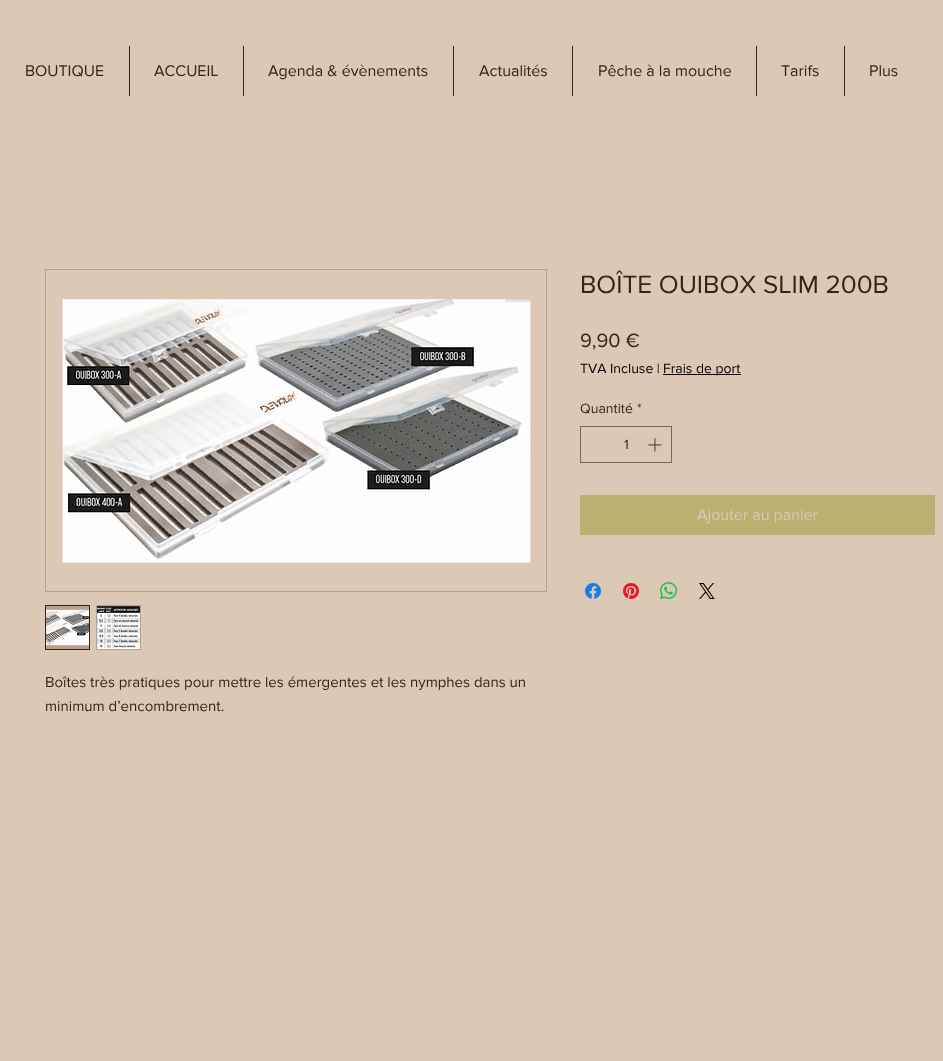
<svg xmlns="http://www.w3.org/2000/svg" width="943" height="1061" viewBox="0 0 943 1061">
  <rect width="100%" height="100%" fill="#dbc8b5"/>
  <text x="25" y="76" font-family="'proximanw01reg'" font-size="16" fill="#392411">BOUTIQUE</text>
  <rect x="129" y="46" width="1" height="50" fill="#392411"/>
  <text x="154" y="76" font-family="'proximanw01reg'" font-size="16" fill="#392411">ACCUEIL</text>
  <rect x="243" y="46" width="1" height="50" fill="#392411"/>
  <text x="268" y="76" font-family="'proximanw01reg'" font-size="16" fill="#392411">Agenda &amp; évènements</text>
  <rect x="453" y="46" width="1" height="50" fill="#392411"/>
  <text x="479" y="76" font-family="'proximanw01reg'" font-size="16" fill="#392411">Actualités</text>
  <rect x="572" y="46" width="1" height="50" fill="#392411"/>
  <text x="598" y="76" font-family="'proximanw01reg'" font-size="16" fill="#392411">Pêche à la mouche</text>
  <rect x="756" y="46" width="1" height="50" fill="#392411"/>
  <text x="781" y="76" font-family="'proximanw01reg'" font-size="16" fill="#392411">Tarifs</text>
  <rect x="844" y="46" width="1" height="50" fill="#392411"/>
  <text x="869" y="76" font-family="'proximanw01reg'" font-size="16" fill="#392411">Plus</text>
  <text x="580" y="293" font-family="'proximanw01reg'" font-size="26" fill="#392411">BOÎTE OUIBOX SLIM 200B</text>
  <text x="580" y="347" font-family="'proximanw01reg'" font-size="20" fill="#392411">9,90 €</text>
  <text x="580" y="373" font-family="'proximanw01reg'" font-size="14" fill="#000000">TVA Incluse |</text>
  <rect x="663" y="374" width="78" height="1" fill="#000000"/>
  <text x="663" y="373" font-family="'proximanw01reg'" font-size="14" fill="#000000">Frais de port</text>
  <text x="580" y="413" font-family="'proximanw01reg'" font-size="14" fill="#392411">Quantité</text>
  <text x="637" y="413" font-family="'proximanw01reg'" font-size="14" fill="#392411">*</text>
  <rect x="580.5" y="426.5" width="91" height="36" fill="none" stroke="#7a6653"/>
  <rect x="592" y="445" width="13" height="1" fill="#d1c8be"/>
  <text x="624" y="449" font-family="'proximanw01reg'" font-size="14" fill="#392411">1</text>
  <image x="648" y="438" width="14" height="14" href="img1.png"/>
  <rect x="580" y="495" width="355" height="40" fill="#bbb070"/>
  <text x="697" y="520" font-family="'proximanw01reg'" font-size="16" fill="#dbc8b5">Ajouter au panier</text>
  <image x="585" y="583" width="16" height="16" href="img2.png"/>
  <image x="623" y="583" width="16" height="16" href="img3.png"/>
  <image x="660" y="582" width="17" height="17" href="img4.png"/>
  <image x="699" y="583" width="16" height="16" href="img5.png"/>
  <rect x="45.5" y="269.5" width="501" height="322" fill="none" stroke="#b8a28e"/>
  <image x="62" y="298" width="469" height="266" href="img6.png"/>
  <rect x="45.5" y="605.5" width="44" height="44" fill="#b8a28e" stroke="#392411"/>
  <image x="46" y="609" width="43" height="37" href="img7.png"/>
  <rect x="96" y="605" width="45" height="45" fill="#b8a28e"/>
  <image x="97" y="606" width="43" height="43" href="img8.png"/>
  <text x="45" y="687" font-family="'proximanw01reg'" font-size="15" fill="#392411">Boîtes très pratiques pour mettre les émergentes et les nymphes dans un</text>
  <text x="45" y="711" font-family="'proximanw01reg'" font-size="15" fill="#392411">minimum d’encombrement.</text>
</svg>
